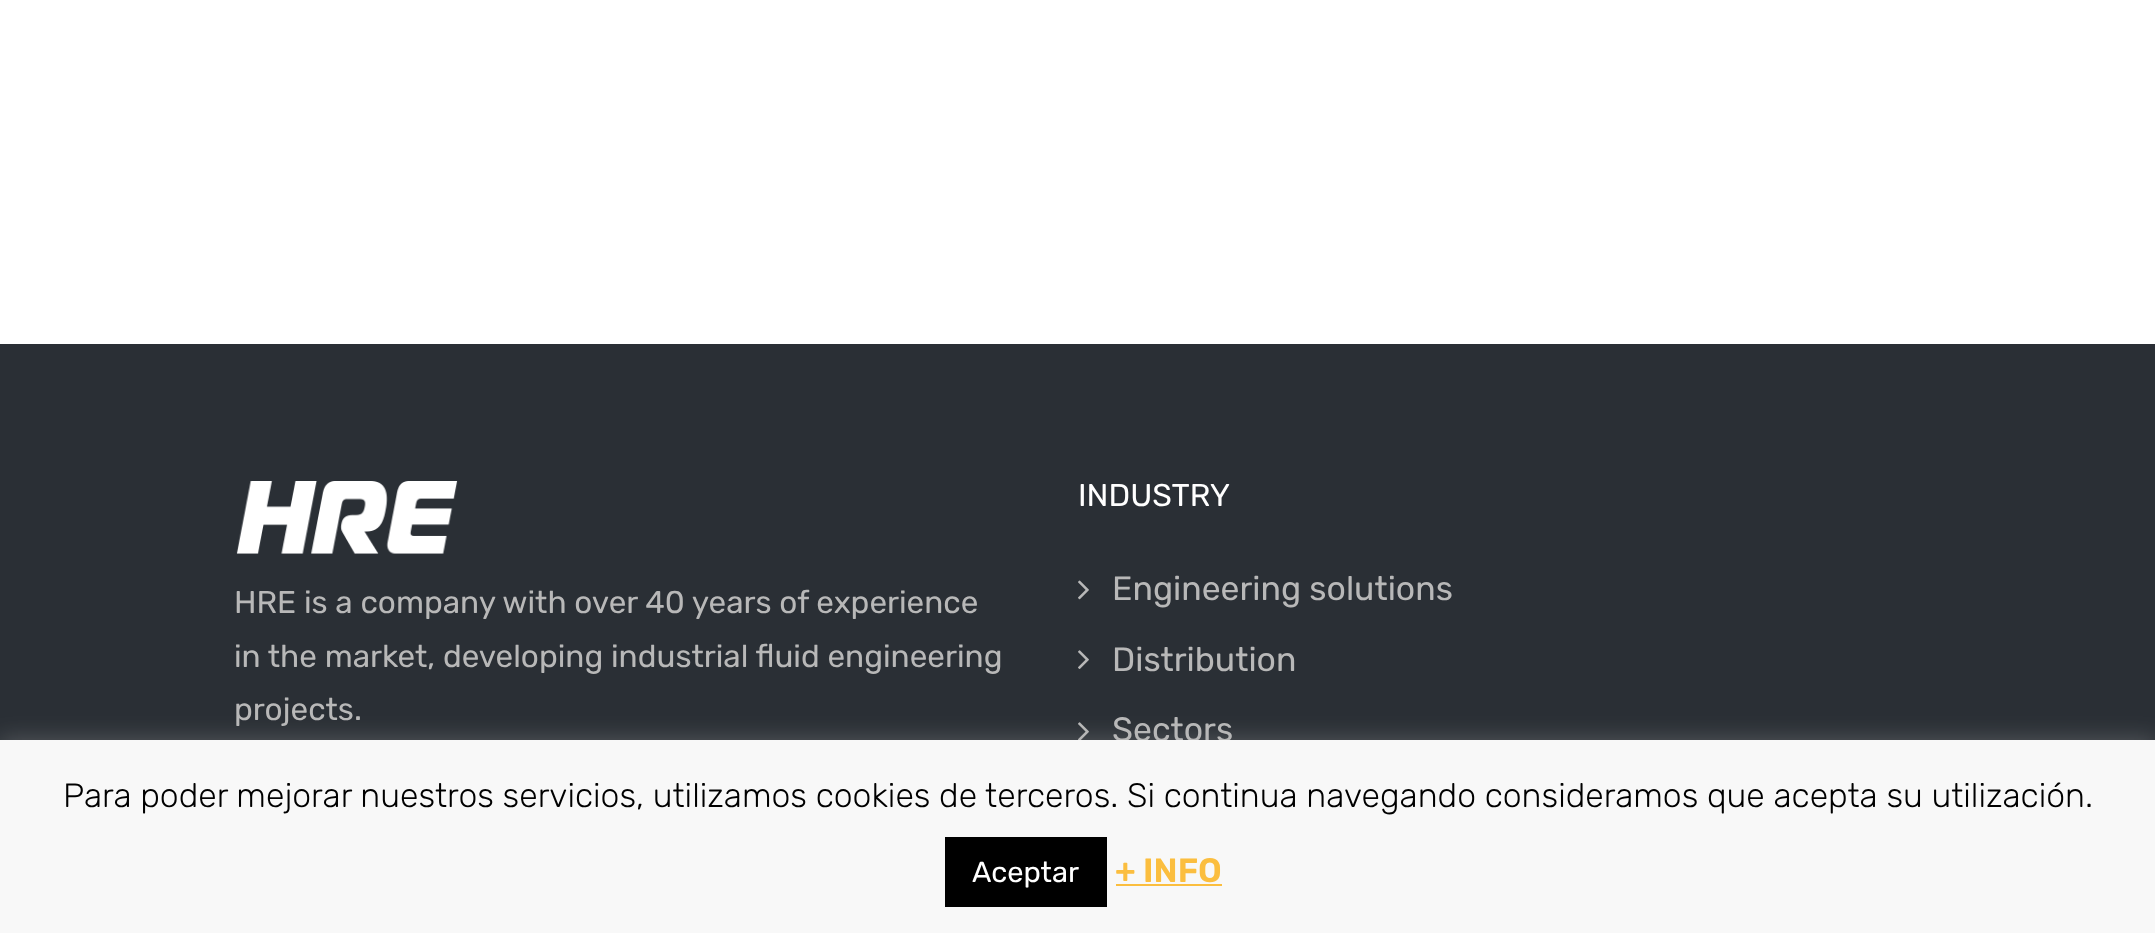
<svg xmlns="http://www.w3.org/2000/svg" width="2155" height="933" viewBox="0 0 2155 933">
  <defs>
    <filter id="blur1" x="-50%" y="-200%" width="200%" height="500%"><feGaussianBlur stdDeviation="11"/></filter>
  </defs>
  <rect width="100%" height="100%" fill="#ffffff"/>
  <rect x="0" y="344" width="2155" height="396" fill="#2a2f35"/>
  <image x="236" y="481" width="222" height="73" href="img1.png"/>
  <text x="234" y="613" font-family="Rubik" font-size="31.5" font-weight="300" fill="#b8b8b8">HRE is a company with over 40 years of experience</text>
  <text x="234" y="667" font-family="Rubik" font-size="31.5" font-weight="300" fill="#b8b8b8">in the market, developing industrial fluid engineering</text>
  <text x="234" y="720" font-family="Rubik" font-size="31.5" font-weight="300" fill="#b8b8b8">projects.</text>
  <text x="1078" y="506" font-family="Rubik" font-size="31.5" font-weight="300" fill="#ffffff">INDUSTRY</text>
  <image x="1078" y="580" width="11" height="20" href="img2.png"/>
  <text x="1112" y="600" font-family="Rubik" font-size="33.75" font-weight="300" fill="#b8b8b8">Engineering solutions</text>
  <image x="1078" y="650" width="11" height="19" href="img3.png"/>
  <text x="1112" y="671" font-family="Rubik" font-size="33.75" font-weight="300" fill="#b8b8b8">Distribution</text>
  <image x="1078" y="722" width="11" height="18" href="img4.png"/>
  <text x="1112" y="741" font-family="Rubik" font-size="33.75" font-weight="300" fill="#b8b8b8">Sectors</text>
  <rect x="0" y="738" width="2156" height="194" fill="#acabab" fill-opacity="0.3" filter="url(#blur1)"/>
  <rect x="0" y="740" width="2155" height="193" fill="#f8f8f8"/>
  <text x="63" y="807" font-family="'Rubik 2'" font-size="33.75" font-weight="300" fill="#000000">Para poder mejorar nuestros servicios, utilizamos cookies de terceros. Si continua navegando consideramos que acepta su utilización.</text>
  <rect x="945" y="837" width="162" height="70" fill="#000000"/>
  <text x="972" y="882" font-family="Rubik" font-size="29" font-weight="300" fill="#ffffff">Aceptar</text>
  <text x="1115" y="882" font-family="Rubik" font-size="33.75" font-weight="600" fill="#fbbe3f">+ INFO</text>
  <rect x="1116" y="884" width="106" height="2" fill="#fbbe3f"/>
</svg>
